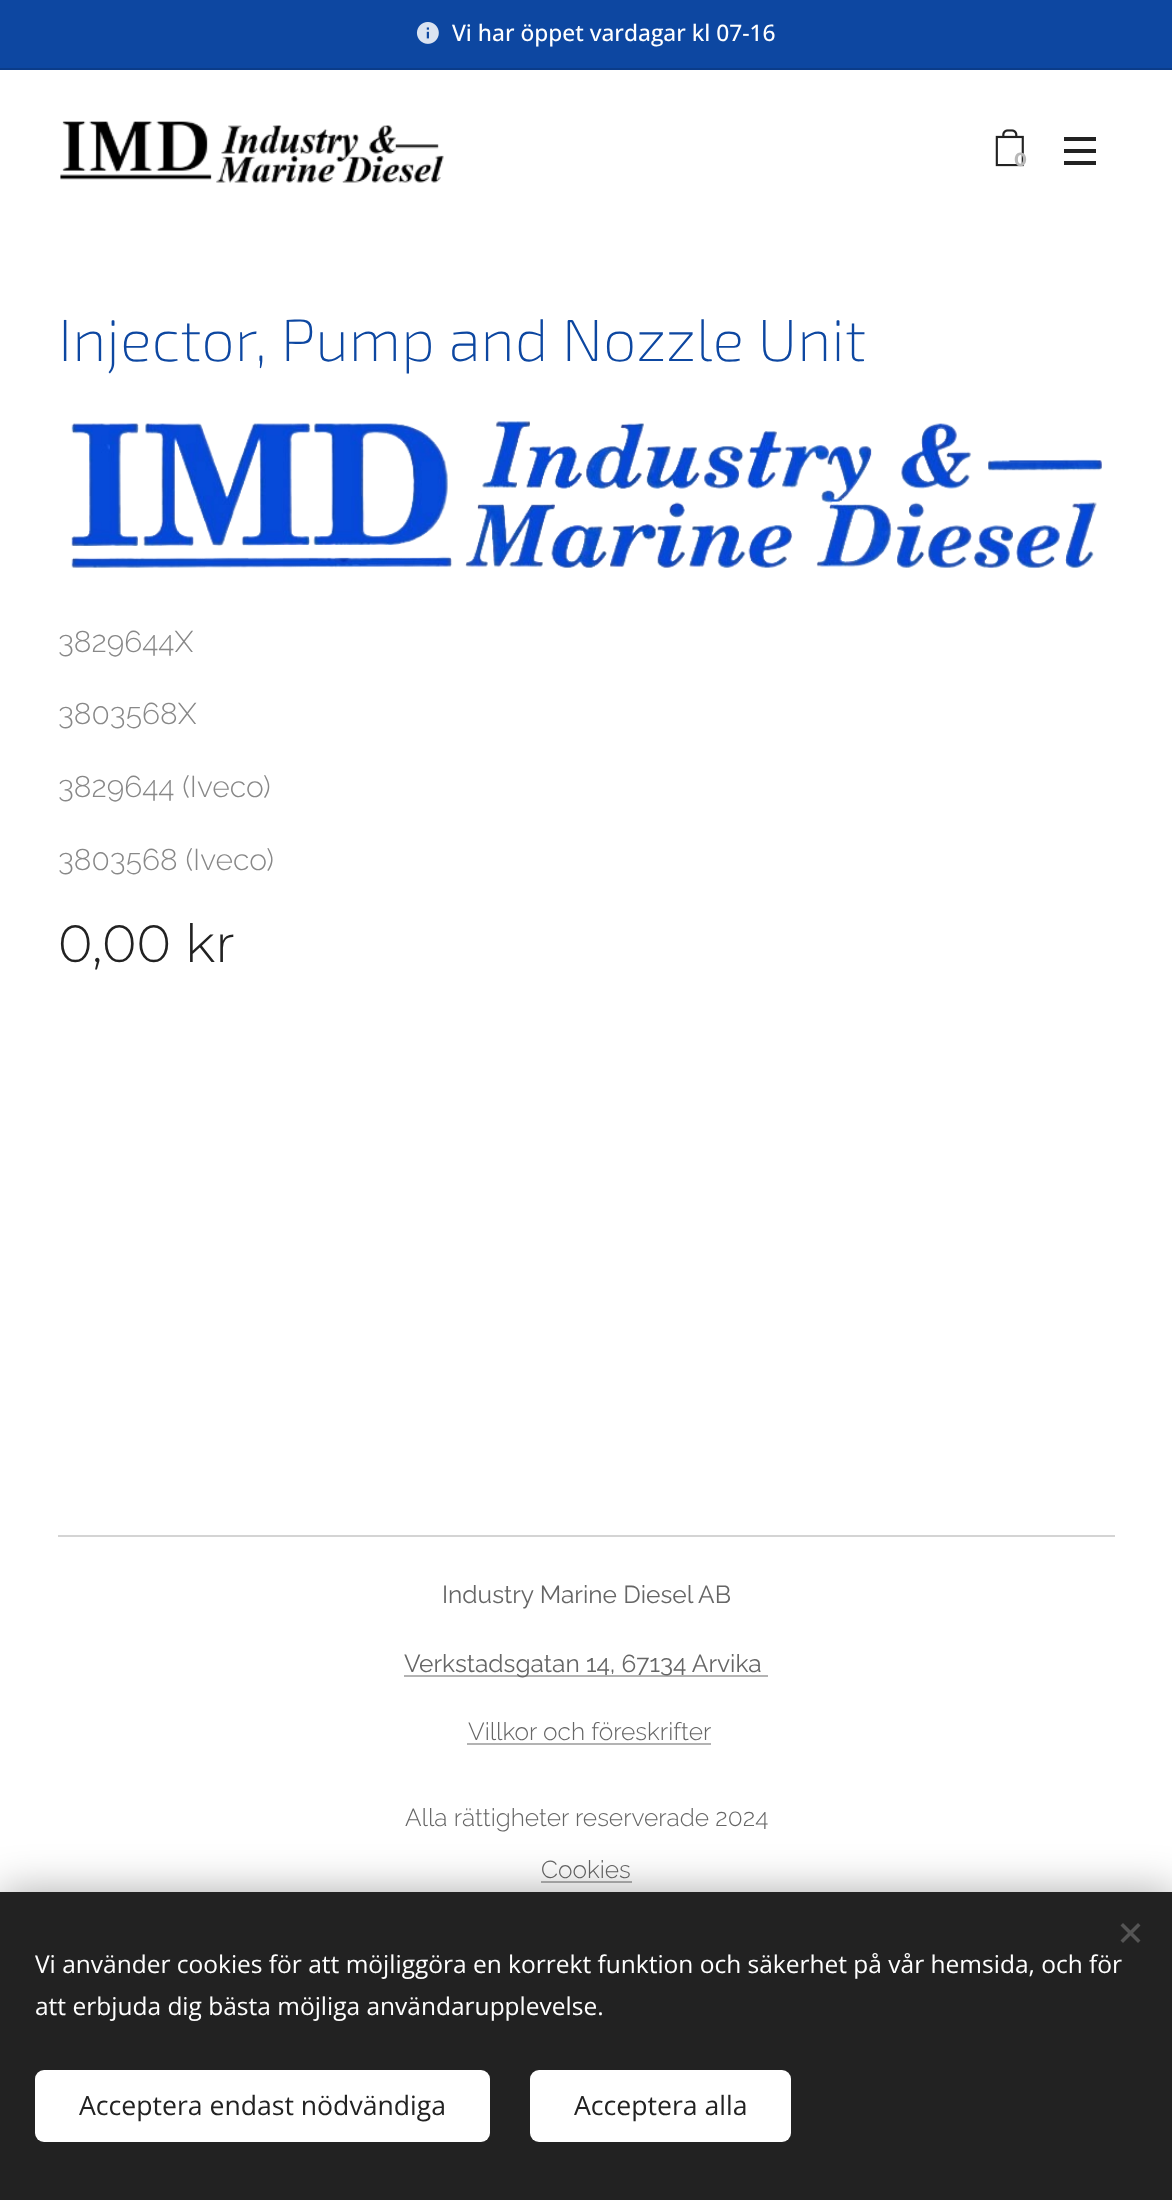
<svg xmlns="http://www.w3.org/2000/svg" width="1172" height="2200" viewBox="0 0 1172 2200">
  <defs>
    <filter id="blur1" x="-50%" y="-200%" width="200%" height="500%"><feGaussianBlur stdDeviation="22"/></filter>
  </defs>
  <rect width="100%" height="100%" fill="#ffffff"/>
  <rect x="0" y="0" width="1172" height="68" fill="#0d47a1"/>
  <image x="416" y="22" width="23" height="22" href="img1.png"/>
  <text x="452" y="41" font-family="Open Sans" font-size="22.75" font-weight="500" fill="#ffffff">Vi har öppet vardagar kl 07-16</text>
  <rect x="0" y="68" width="1172" height="2" fill="#0b3c89"/>
  <image x="60" y="121" width="384" height="62" href="img2.png"/>
  <image x="995" y="129" width="29" height="38" href="img3.png"/>
  <text x="1014" y="166" font-family="Montserrat" font-size="19" font-weight="bold" fill="#b8b8b8">0</text>
  <rect x="1064" y="149" width="32" height="4" fill="#222222"/>
  <rect x="1064" y="137" width="32" height="4" fill="#222222"/>
  <rect x="1064" y="161" width="32" height="4" fill="#222222"/>
  <text x="58" y="361" font-family="'Exo 2'" font-size="59.5" font-weight="200" fill="#0d47a1">Injector, Pump and Nozzle Unit</text>
  <image x="71" y="421" width="1031" height="148" href="img4.png"/>
  <text x="58" y="652" font-family="Raleway" font-size="30" font-weight="300" fill="#888888">3829644X</text>
  <text x="58" y="724" font-family="Raleway" font-size="30" font-weight="300" fill="#888888">3803568X</text>
  <text x="58" y="797" font-family="Raleway" font-size="30" font-weight="300" fill="#888888">3829644 (Iveco)</text>
  <text x="58" y="870" font-family="Raleway" font-size="30" font-weight="300" fill="#888888">3803568 (Iveco)</text>
  <text x="58" y="962" font-family="Montserrat" font-size="52.5" font-weight="300" fill="#222222">0,00 kr</text>
  <rect x="58" y="1535" width="1057" height="2" fill="#d4d4d4"/>
  <text x="442" y="1603" font-family="Raleway" font-size="24.5" fill="#666666">Industry Marine Diesel AB</text>
  <rect x="404" y="1675" width="364" height="2" fill="#b3b3b3"/>
  <text x="404" y="1672" font-family="Raleway" font-size="24.5" fill="#666666">Verkstadsgatan 14, 67134 Arvika</text>
  <text x="468" y="1740" font-family="Raleway" font-size="24.5" font-weight="300" fill="#666666">Villkor och föreskrifter</text>
  <rect x="467" y="1743" width="244" height="2" fill="#b3b3b3"/>
  <text x="405" y="1826" font-family="Raleway" font-size="24.5" font-weight="300" fill="#666666">Alla rättigheter reserverade 2024</text>
  <text x="541" y="1878" font-family="Raleway" font-size="24.5" font-weight="300" fill="#666666">Cookies</text>
  <rect x="541" y="1881" width="91" height="2" fill="#b3b3b3"/>
  <rect x="0" y="1892" width="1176" height="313" fill="#000000" fill-opacity="0.33" filter="url(#blur1)"/>
  <rect x="0" y="1892" width="1172" height="308" fill="#222222"/>
  <path d="M1120.5 1940.5L1138 1923L1140.5 1925.5L1123 1943Z" fill="#555555"/>
  <path d="M1123 1923L1140.5 1940.5L1138 1943L1120.5 1925.5Z" fill="#555555"/>
  <text x="35" y="1973" font-family="Open Sans" font-size="24.5" fill="#ffffff">Vi använder cookies för att möjliggöra en korrekt funktion och säkerhet på vår hemsida, och för</text>
  <text x="35" y="2015" font-family="Open Sans" font-size="24.5" fill="#ffffff">att erbjuda dig bästa möjliga användarupplevelse.</text>
  <rect x="35" y="2070" width="455" height="72" rx="9" fill="#ffffff"/>
  <text x="79" y="2115" font-family="Open Sans" font-size="26.6" fill="#222222">Acceptera endast nödvändiga</text>
  <rect x="530" y="2070" width="261" height="72" rx="9" fill="#ffffff"/>
  <text x="574" y="2115" font-family="Open Sans" font-size="26.6" fill="#222222">Acceptera alla</text>
</svg>
